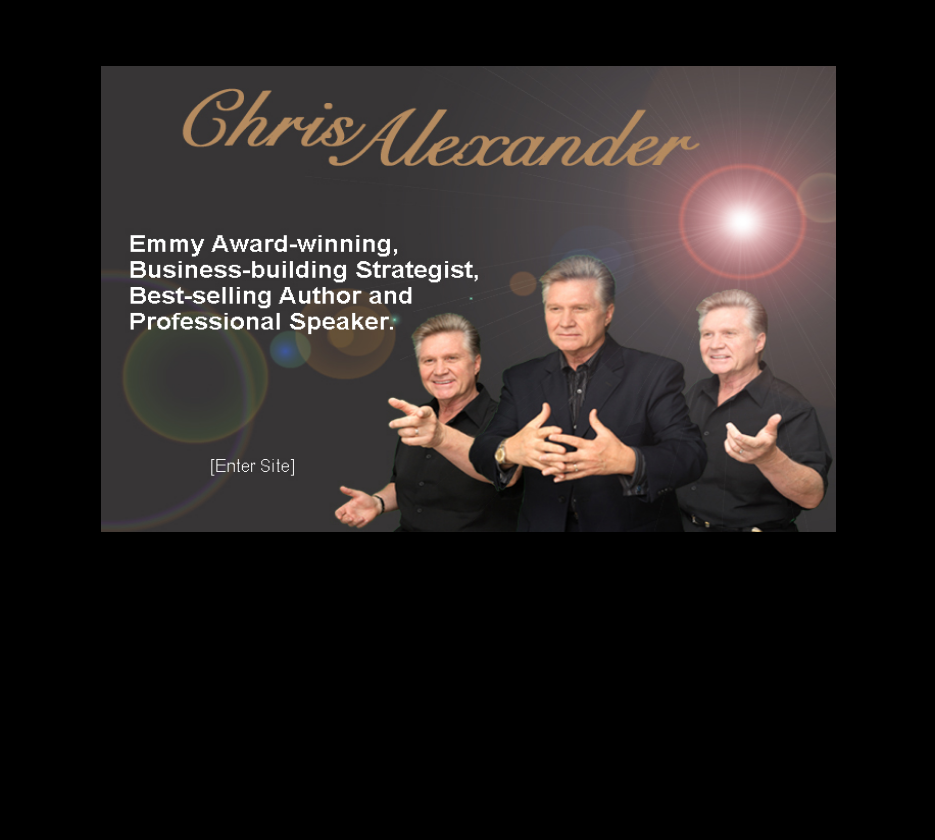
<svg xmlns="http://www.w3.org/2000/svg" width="935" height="840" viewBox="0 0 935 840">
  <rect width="100%" height="100%" fill="#000000"/>
  <image x="101" y="66" width="735" height="466" href="img1.png"/>
</svg>
